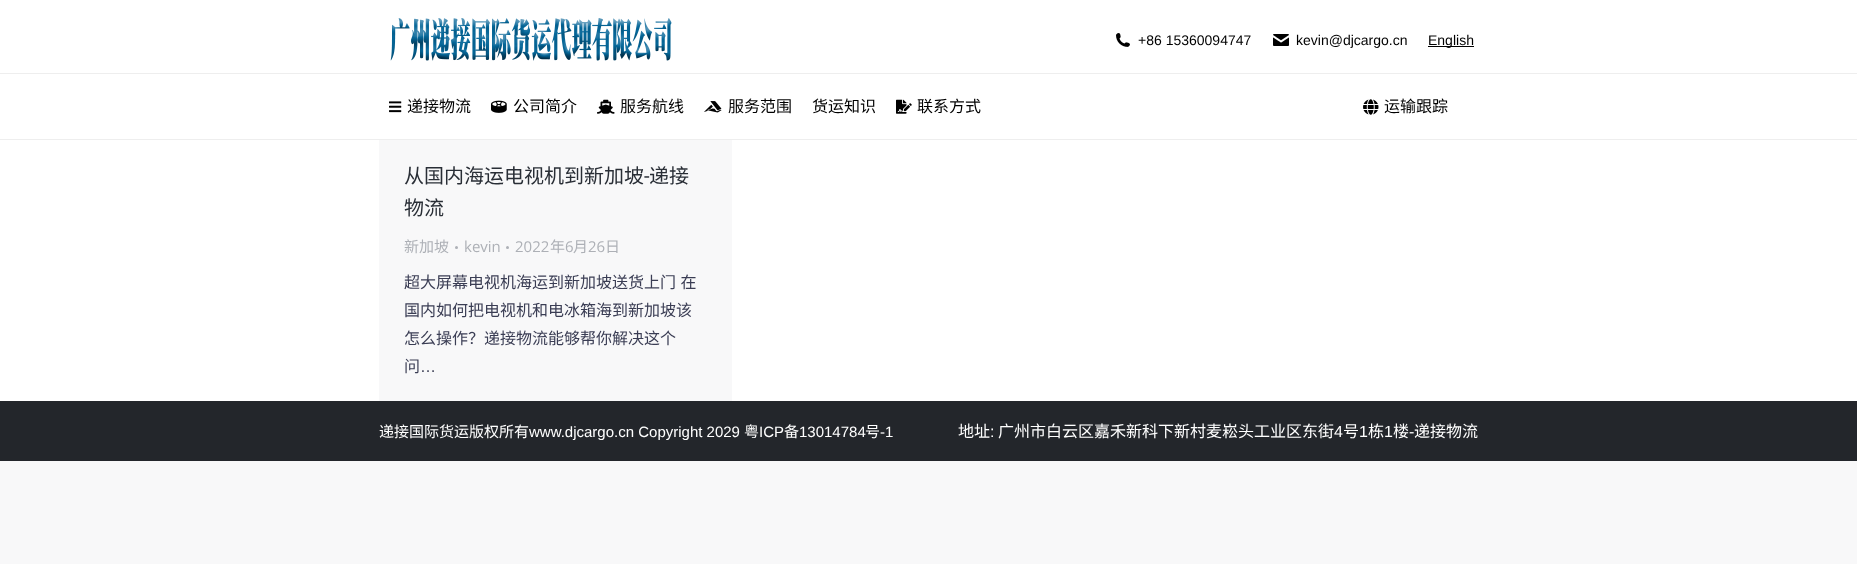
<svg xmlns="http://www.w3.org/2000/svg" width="1857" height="564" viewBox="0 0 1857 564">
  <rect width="100%" height="100%" fill="#f8f8f9"/>
  <rect x="0" y="0" width="1857" height="401" fill="#ffffff"/>
  <rect x="0" y="139" width="1857" height="1" fill="#eeeeee"/>
  <image x="390" y="18" width="282" height="43" href="img1.png"/>
  <image x="1116" y="33" width="14" height="14" href="img2.png"/>
  <text x="1138" y="45" font-family="Liberation Sans" font-size="14" fill="#000000">+86 15360094747</text>
  <image x="1273" y="34" width="16" height="12" href="img3.png"/>
  <text x="1296" y="45" font-family="Liberation Sans" font-size="14" fill="#000000">kevin@djcargo.cn</text>
  <rect x="1428" y="46" width="46" height="1" fill="#000000"/>
  <text x="1428" y="45" font-family="Liberation Sans" font-size="14" fill="#000000">English</text>
  <rect x="0" y="73" width="1857" height="1" fill="#eeeeee"/>
  <image x="389" y="101" width="13" height="12" href="img4.png"/>
  <text x="407" y="112" font-family="Noto Sans CJK SC" font-size="16" fill="#000000">递接物流</text>
  <image x="491" y="100" width="16" height="13" href="img5.png"/>
  <text x="513" y="112" font-family="Noto Sans CJK SC" font-size="16" fill="#000000">公司简介</text>
  <image x="597" y="99" width="18" height="15" href="img6.png"/>
  <text x="620" y="112" font-family="Noto Sans CJK SC" font-size="16" fill="#000000">服务航线</text>
  <image x="704" y="101" width="18" height="12" href="img7.png"/>
  <text x="728" y="112" font-family="Noto Sans CJK SC" font-size="16" fill="#000000">服务范围</text>
  <text x="812" y="112" font-family="Noto Sans CJK SC" font-size="16" fill="#000000">货运知识</text>
  <image x="896" y="99" width="16" height="15" href="img8.png"/>
  <text x="917" y="112" font-family="Noto Sans CJK SC" font-size="16" fill="#000000">联系方式</text>
  <image x="1363" y="99" width="16" height="16" href="img9.png"/>
  <text x="1384" y="112" font-family="Noto Sans CJK SC" font-size="16" fill="#000000">运输跟踪</text>
  <rect x="379" y="140" width="353" height="261" fill="#f8f8f9"/>
  <text x="404" y="183" font-family="Noto Sans CJK SC" font-size="20" fill="#292e36">从国内海运电视机到新加坡</text>
  <text x="644" y="183" font-family="Roboto" font-size="20" fill="#292e36">-</text>
  <text x="649" y="183" font-family="Noto Sans CJK SC" font-size="20" fill="#292e36">递接</text>
  <text x="404" y="215" font-family="Noto Sans CJK SC" font-size="20" fill="#292e36">物流</text>
  <text x="404" y="252" font-family="Noto Sans CJK SC" font-size="15" fill="#adb0b6">新加坡</text>
  <circle cx="456.5" cy="247.5" r="1.5" fill="#adb0b6"/>
  <text x="464" y="252" font-family="Open Sans" font-size="15" fill="#adb0b6">kevin</text>
  <circle cx="507.5" cy="247.5" r="1.5" fill="#adb0b6"/>
  <text x="515" y="252" font-family="Open Sans" font-size="15" fill="#adb0b6">2022</text>
  <text x="550" y="252" font-family="Noto Sans CJK SC" font-size="15" fill="#adb0b6">年</text>
  <text x="565" y="252" font-family="Open Sans" font-size="15" fill="#adb0b6">6</text>
  <text x="573" y="252" font-family="Noto Sans CJK SC" font-size="15" fill="#adb0b6">月</text>
  <text x="588" y="252" font-family="Open Sans" font-size="15" fill="#adb0b6">26</text>
  <text x="605" y="252" font-family="Noto Sans CJK SC" font-size="15" fill="#adb0b6">日</text>
  <text x="404" y="288" word-spacing="1" font-family="Noto Sans CJK SC" font-size="16" fill="#3a3d54">超大屏幕电视机海运到新加坡送货上门 在</text>
  <text x="404" y="316" font-family="Noto Sans CJK SC" font-size="16" fill="#3a3d54">国内如何把电视机和电冰箱海到新加坡该</text>
  <text x="404" y="344" font-family="Noto Sans CJK SC" font-size="16" fill="#3a3d54">怎么操作？递接物流能够帮你解决这个</text>
  <text x="404" y="372" font-family="Noto Sans CJK SC" font-size="16" fill="#3a3d54">问</text>
  <text x="420" y="372" font-family="Liberation Sans" font-size="16" fill="#3a3d54">…</text>
  <rect x="0" y="401" width="1857" height="60" fill="#23262b"/>
  <text x="379" y="437" font-family="Noto Sans CJK SC" font-size="15" fill="#ffffff">递接国际货运版权所有</text>
  <text x="529" y="437" font-family="Liberation Sans" font-size="15" fill="#ffffff">www.djcargo.cn Copyright 2029</text>
  <text x="744" y="437" font-family="Noto Sans CJK SC" font-size="15" fill="#ffffff">粤</text>
  <text x="759" y="437" font-family="Liberation Sans" font-size="15" fill="#ffffff">ICP</text>
  <text x="784" y="437" font-family="Noto Sans CJK SC" font-size="15" fill="#ffffff">备</text>
  <text x="799" y="437" font-family="Liberation Sans" font-size="15" fill="#ffffff">13014784</text>
  <text x="865" y="437" font-family="Noto Sans CJK SC" font-size="15" fill="#ffffff">号</text>
  <text x="880" y="437" font-family="Liberation Sans" font-size="15" fill="#ffffff">-1</text>
  <text x="958" y="437" font-family="Noto Sans CJK SC" font-size="16" fill="#ffffff">地址</text>
  <text x="990" y="437" font-family="Liberation Sans" font-size="16" fill="#ffffff">:</text>
  <text x="998" y="437" font-family="Noto Sans CJK SC" font-size="16" fill="#ffffff">广州市白云区嘉禾新科下新村麦崧头工业区东街</text>
  <text x="1334" y="437" font-family="Liberation Sans" font-size="16" fill="#ffffff">4</text>
  <text x="1343" y="437" font-family="Noto Sans CJK SC" font-size="16" fill="#ffffff">号</text>
  <text x="1359" y="437" font-family="Liberation Sans" font-size="16" fill="#ffffff">1</text>
  <text x="1368" y="437" font-family="Noto Sans CJK SC" font-size="16" fill="#ffffff">栋</text>
  <text x="1384" y="437" font-family="Liberation Sans" font-size="16" fill="#ffffff">1</text>
  <text x="1393" y="437" font-family="Noto Sans CJK SC" font-size="16" fill="#ffffff">楼</text>
  <text x="1409" y="437" font-family="Liberation Sans" font-size="16" fill="#ffffff">-</text>
  <text x="1414" y="437" font-family="Noto Sans CJK SC" font-size="16" fill="#ffffff">递接物流</text>
</svg>
